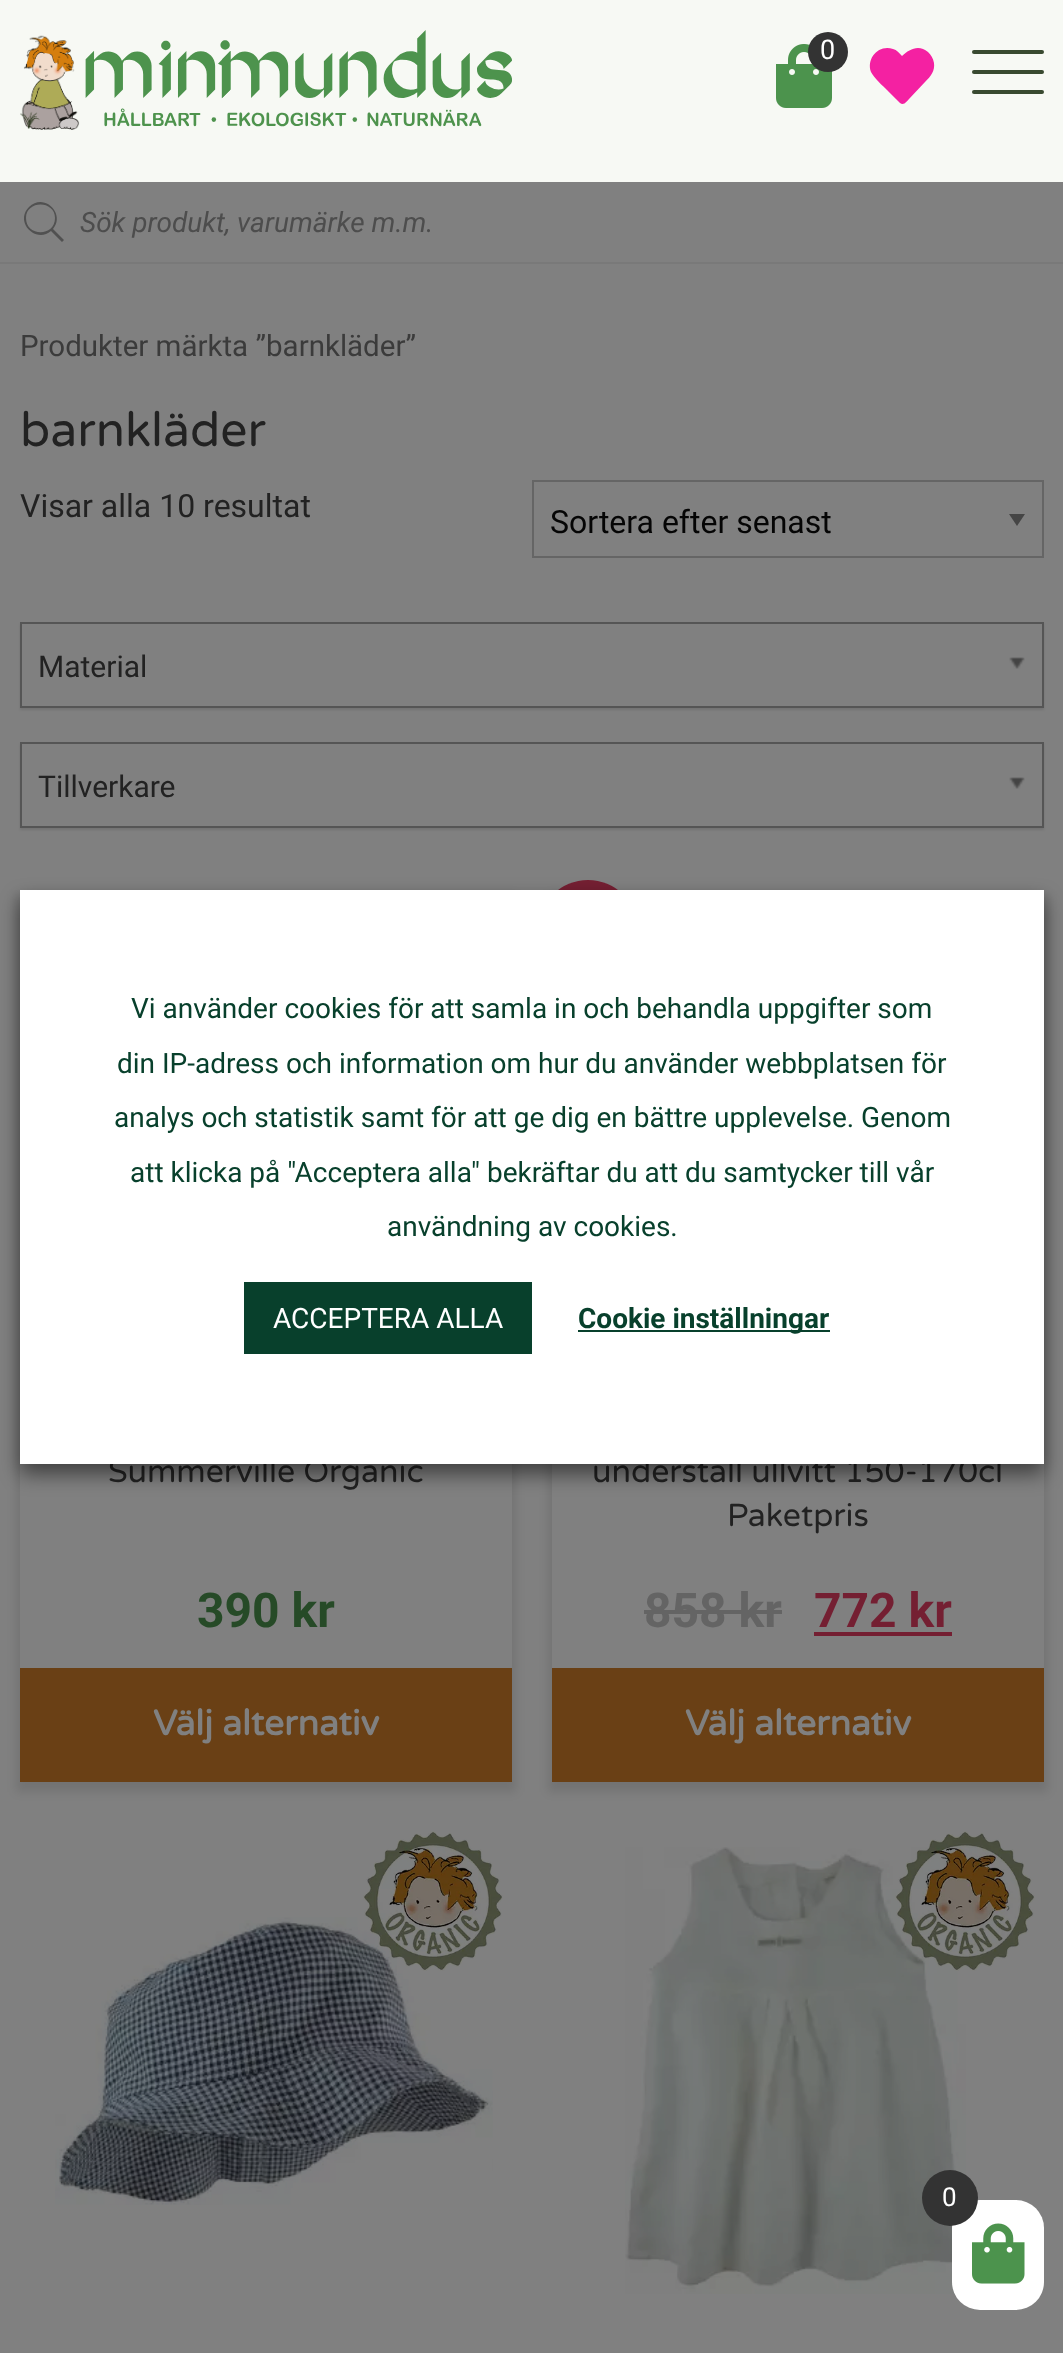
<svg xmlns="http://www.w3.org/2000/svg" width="1063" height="2353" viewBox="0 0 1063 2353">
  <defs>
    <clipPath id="clip1"><path d="M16 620H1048V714H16ZM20 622H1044V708H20Z" clip-rule="evenodd"/></clipPath>
    <filter id="blur1" x="-50%" y="-200%" width="200%" height="500%"><feGaussianBlur stdDeviation="1"/></filter>
    <clipPath id="clip2"><path d="M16 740H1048V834H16ZM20 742H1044V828H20Z" clip-rule="evenodd"/></clipPath>
    <clipPath id="clip3"><path d="M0 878H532V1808H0ZM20 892H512V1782H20Z" clip-rule="evenodd"/></clipPath>
    <filter id="blur2" x="-50%" y="-200%" width="200%" height="500%"><feGaussianBlur stdDeviation="5"/></filter>
    <clipPath id="clip4"><path d="M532 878H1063V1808H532ZM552 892H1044V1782H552Z" clip-rule="evenodd"/></clipPath>
    <filter id="blur3" x="-50%" y="-200%" width="200%" height="500%"><feGaussianBlur stdDeviation="10"/></filter>
  </defs>
  <rect width="100%" height="100%" fill="#797979"/>
  <rect x="0" y="0" width="1063" height="182" fill="#f7f9f4"/>
  <image x="20" y="30" width="492" height="100" href="img1.png"/>
  <image x="776" y="44" width="56" height="64" href="img2.png"/>
  <circle cx="828" cy="52" r="20" fill="#333333"/>
  <text x="820" y="59" font-family="Roboto" font-size="27" fill="#ffffff">0</text>
  <path d="M928 52C931 55 933 58 934 63C935 71 931 76 925 82L909 99C907 101 904 106 900 103L887 90C883 86 874 78 871 72C866 58 879 44 893 49C897 50 899 53 902 56C909 49 919 44 928 52Z" fill="#f421a2"/>
  <rect x="972" y="50" width="72" height="4" rx="2" fill="#394a30"/>
  <rect x="972" y="70" width="72" height="4" rx="2" fill="#394a30"/>
  <rect x="972" y="90" width="72" height="4" rx="2" fill="#394a30"/>
  <rect x="0" y="182" width="1063" height="80" fill="#808080"/>
  <path d="M64 240L53 229C66 214 44 192 29 207C14 222 36 244 51 231L62 242ZM26 218C26 200 55 200 55 218C55 237 26 237 26 218Z" fill="#515151"/>
  <text x="80" y="232" font-family="Roboto" font-size="28" font-style="italic" fill="#4d4d4d">Sök produkt, varumärke m.m.</text>
  <rect x="0" y="264" width="1063" height="2089" fill="#808080"/>
  <text x="20" y="356" font-family="Roboto" font-size="29.5" fill="#3b3b3b">Produkter märkta ”barnkläder”</text>
  <text x="20" y="446" font-family="Varela Round" font-size="48" fill="#222222">barnkläder</text>
  <text x="20" y="517" font-family="Roboto" font-size="32" fill="#222222">Visar alla 10 resultat</text>
  <path d="M1009 514H1025L1017 526Z" fill="#454545"/>
  <rect x="533" y="481" width="510" height="76" fill="none" stroke="#656565" stroke-width="2"/>
  <text x="550" y="533" font-family="Roboto" font-size="32" fill="#050505">Sortera efter senast</text>
  <g clip-path="url(#clip1)">
    <rect x="20" y="624" width="1024" height="86" fill="#000000" fill-opacity="0.1" filter="url(#blur1)"/>
  </g>
  <rect x="21" y="623" width="1022" height="84" fill="none" stroke="#555555" stroke-width="2"/>
  <text x="38" y="677" font-family="Roboto" font-size="30" fill="#222222">Material</text>
  <image x="1009" y="657" width="16" height="12" href="img3.png"/>
  <g clip-path="url(#clip2)">
    <rect x="20" y="744" width="1024" height="86" fill="#000000" fill-opacity="0.1" filter="url(#blur1)"/>
  </g>
  <rect x="21" y="743" width="1022" height="84" fill="none" stroke="#555555" stroke-width="2"/>
  <text x="38" y="797" font-family="Roboto" font-size="30" fill="#222222">Tillverkare</text>
  <image x="1009" y="777" width="16" height="12" href="img3.png"/>
  <g clip-path="url(#clip3)">
    <rect x="16" y="894" width="500" height="898" fill="#000000" fill-opacity="0.1" filter="url(#blur2)"/>
  </g>
  <text x="108" y="1482" font-family="Varela Round" font-size="32" fill="#222222">Summerville Organic</text>
  <text x="197" y="1627" font-family="Roboto" font-size="48" font-weight="bold" fill="#264a27">390 kr</text>
  <rect x="20" y="1668" width="492" height="114" fill="#6a4015"/>
  <text x="153" y="1735" font-family="Varela Round" font-size="35.25" font-weight="bold" fill="#808080">Välj alternativ</text>
  <g clip-path="url(#clip4)">
    <rect x="548" y="894" width="500" height="898" fill="#000000" fill-opacity="0.1" filter="url(#blur2)"/>
  </g>
  <circle cx="588" cy="930" r="50" fill="#741f32"/>
  <text x="592" y="1482" font-family="Varela Round" font-size="32" fill="#222222">underställ ullvitt 150-170cl</text>
  <text x="727" y="1526" font-family="Varela Round" font-size="32" fill="#222222">Paketpris</text>
  <text x="644" y="1627" font-family="Roboto" font-size="48" font-weight="bold" fill="#646464">858 kr</text>
  <rect x="644" y="1610" width="138" height="4" fill="#646464"/>
  <text x="814" y="1627" font-family="Roboto" font-size="48" font-weight="bold" fill="#741f32">772 kr</text>
  <rect x="814" y="1632" width="138" height="4" fill="#741f32"/>
  <rect x="552" y="1668" width="492" height="114" fill="#6a4015"/>
  <text x="685" y="1735" font-family="Varela Round" font-size="35.25" font-weight="bold" fill="#808080">Välj alternativ</text>
  <image x="55" y="1917" width="438" height="288" href="img5.png"/>
  <image x="363" y="1831" width="140" height="140" href="img4.png"/>
  <image x="625" y="1847" width="341" height="447" href="img7.png"/>
  <image x="895" y="1831" width="140" height="140" href="img6.png"/>
  <rect x="20" y="900" width="1024" height="574" fill="#000000" fill-opacity="0.5" filter="url(#blur3)"/>
  <rect x="20" y="890" width="1024" height="574" fill="#ffffff"/>
  <text x="131" y="1018" font-family="Roboto" font-size="28" fill="#08402c">Vi använder cookies för att samla in och behandla uppgifter som</text>
  <text x="117" y="1073" font-family="Roboto" font-size="28" fill="#08402c">din IP-adress och information om hur du använder webbplatsen för</text>
  <text x="114" y="1127" font-family="Roboto" font-size="28" fill="#08402c">analys och statistik samt för att ge dig en bättre upplevelse. Genom</text>
  <text x="130" y="1182" font-family="Roboto" font-size="28" fill="#08402c">att klicka på "Acceptera alla" bekräftar du att du samtycker till vår</text>
  <text x="387" y="1236" font-family="Roboto" font-size="28" fill="#08402c">användning av cookies.</text>
  <rect x="244" y="1282" width="288" height="72" fill="#08402c"/>
  <text x="273" y="1328" font-family="Roboto" font-size="28" fill="#ffffff">ACCEPTERA ALLA</text>
  <rect x="578" y="1330" width="252" height="2" fill="#08402c"/>
  <text x="578" y="1328" font-family="Roboto" font-size="28" font-weight="bold" fill="#08402c">Cookie inställningar</text>
  <rect x="952" y="2200" width="92" height="110" rx="28" fill="#ffffff"/>
  <image x="972" y="2223" width="53" height="61" href="img8.png"/>
  <circle cx="950" cy="2198" r="28" fill="#333333"/>
  <text x="942" y="2206" font-family="Roboto" font-size="26" fill="#ffffff">0</text>
</svg>
